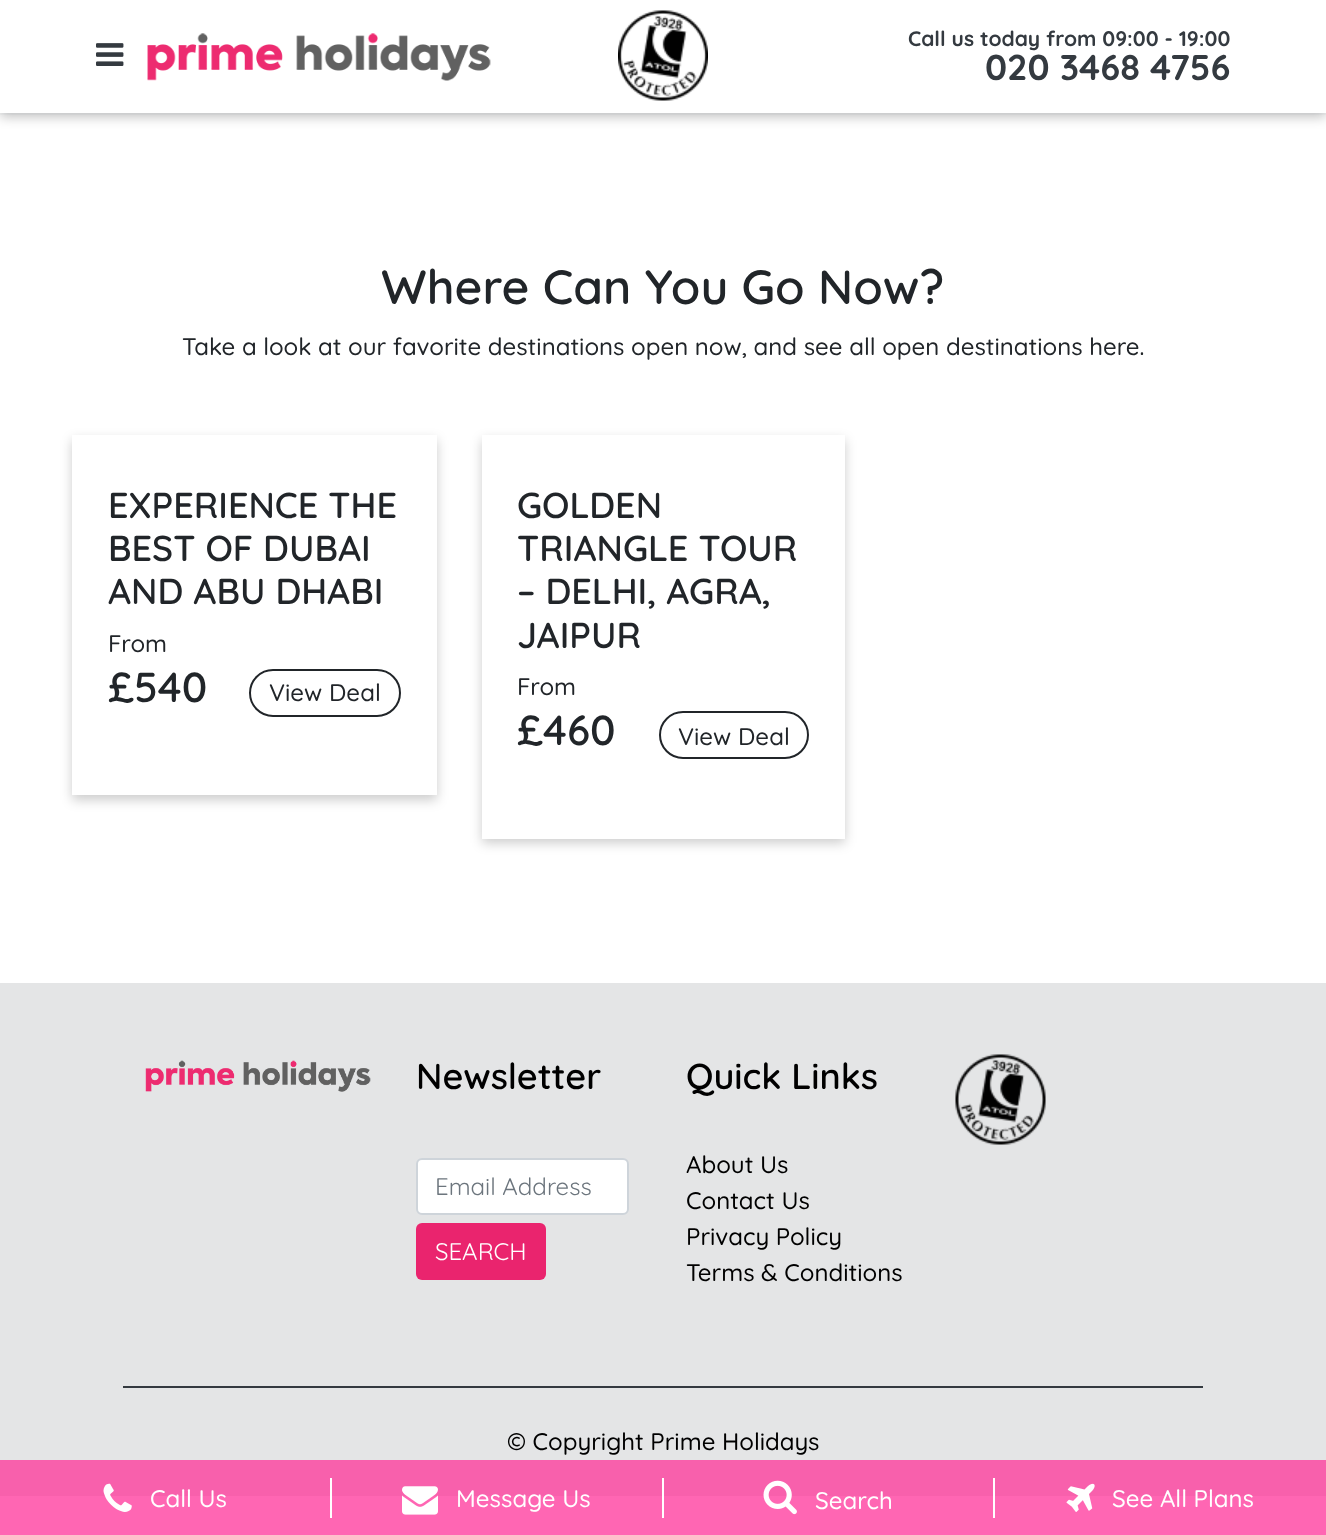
<svg xmlns="http://www.w3.org/2000/svg" width="1326" height="1535" viewBox="0 0 1326 1535">
  <defs>
    <clipPath id="clip1"><path d="M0 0H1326V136H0ZM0 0H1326V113H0Z" clip-rule="evenodd"/></clipPath>
    <filter id="blur1" x="-50%" y="-200%" width="200%" height="500%"><feGaussianBlur stdDeviation="6"/></filter>
    <clipPath id="clip2"><path d="M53 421H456V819H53ZM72 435H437V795H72Z" clip-rule="evenodd"/></clipPath>
    <clipPath id="clip3"><path d="M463 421H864V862H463ZM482 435H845V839H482Z" clip-rule="evenodd"/></clipPath>
  </defs>
  <rect width="100%" height="100%" fill="#ffffff"/>
  <rect x="0" y="1496" width="1326" height="39" fill="#ff66b3"/>
  <rect x="0" y="113" width="1326" height="2" fill="#f8f9fa"/>
  <g clip-path="url(#clip1)">
    <rect x="0" y="5" width="1326" height="112" fill="#000000" fill-opacity="0.24" filter="url(#blur1)"/>
  </g>
  <image x="618" y="10" width="90" height="91" href="img1.png"/>
  <image x="96" y="43" width="28" height="23" href="img2.png"/>
  <image x="147" y="33" width="344" height="48" href="img3.png"/>
  <text x="908" y="46" font-family="Quicksand" font-size="21" font-weight="bold" fill="#343a40">Call us today from 09:00 - 19:00</text>
  <text x="985" y="80" font-family="Quicksand" font-size="36" font-weight="bold" fill="#343a40">020 3468 4756</text>
  <text x="381" y="304" font-family="Quicksand" font-size="48" font-weight="600" fill="#212529">Where Can You Go Now?</text>
  <text x="182" y="355" font-family="Quicksand" font-size="24" font-weight="500" fill="#212529">Take a look at our favorite destinations open now, and see all open destinations here.</text>
  <g clip-path="url(#clip2)">
    <rect x="72" y="440" width="365" height="360" fill="#000000" fill-opacity="0.2" filter="url(#blur1)"/>
  </g>
  <text x="108" y="518" font-family="Quicksand" font-size="36" font-weight="600" fill="#212529">EXPERIENCE THE</text>
  <text x="108" y="561" font-family="Quicksand" font-size="36" font-weight="600" fill="#212529">BEST OF DUBAI</text>
  <text x="108" y="604" font-family="Quicksand" font-size="36" font-weight="600" fill="#212529">AND ABU DHABI</text>
  <text x="108" y="652" font-family="Quicksand" font-size="24" font-weight="500" fill="#212529">From</text>
  <text x="108" y="702" font-family="Quicksand" font-size="42" font-weight="600" fill="#212529">£540</text>
  <rect x="250" y="670" width="150" height="46" rx="23" fill="none" stroke="#212529" stroke-width="2"/>
  <text x="269" y="701" font-family="Quicksand" font-size="24" font-weight="500" fill="#212529">View Deal</text>
  <g clip-path="url(#clip3)">
    <rect x="482" y="440" width="363" height="403" fill="#000000" fill-opacity="0.2" filter="url(#blur1)"/>
  </g>
  <text x="517" y="518" font-family="Quicksand" font-size="36" font-weight="600" fill="#212529">GOLDEN</text>
  <text x="517" y="561" font-family="Quicksand" font-size="36" font-weight="600" fill="#212529">TRIANGLE TOUR</text>
  <text x="517" y="604" font-family="Quicksand" font-size="36" font-weight="600" fill="#212529">– DELHI, AGRA,</text>
  <text x="517" y="648" font-family="Quicksand" font-size="36" font-weight="600" fill="#212529">JAIPUR</text>
  <text x="517" y="695" font-family="Quicksand" font-size="24" font-weight="500" fill="#212529">From</text>
  <text x="517" y="745" font-family="Quicksand" font-size="42" font-weight="600" fill="#212529">£460</text>
  <rect x="660" y="712" width="148" height="46" rx="23" fill="none" stroke="#212529" stroke-width="2"/>
  <text x="678" y="745" font-family="Quicksand" font-size="24" font-weight="500" fill="#212529">View Deal</text>
  <rect x="0" y="983" width="1326" height="477" fill="#e4e5e6"/>
  <rect x="0" y="1460" width="1326" height="36" fill="#f860ac"/>
  <image x="145" y="1060" width="226" height="32" href="img4.png"/>
  <text x="416" y="1089" font-family="Quicksand" font-size="36" font-weight="600" fill="#000000">Newsletter</text>
  <rect x="417" y="1159" width="211" height="55" rx="5" fill="#ffffff" stroke="#ced4da" stroke-width="2"/>
  <text x="435" y="1195" font-family="Quicksand" font-size="24" fill="#6c757d">Email Address</text>
  <rect x="416" y="1223" width="130" height="57" rx="6" fill="#ea246e"/>
  <text x="435" y="1260" font-family="Quicksand" font-size="24" fill="#ffffff">SEARCH</text>
  <text x="686" y="1089" font-family="Quicksand" font-size="36" font-weight="600" fill="#000000">Quick Links</text>
  <text x="686" y="1173" font-family="Quicksand" font-size="24" font-weight="500" fill="#000000">About Us</text>
  <text x="686" y="1209" font-family="Quicksand" font-size="24" font-weight="500" fill="#000000">Contact Us</text>
  <text x="686" y="1245" font-family="Quicksand" font-size="24" font-weight="500" fill="#000000">Privacy Policy</text>
  <text x="686" y="1281" font-family="Quicksand" font-size="24" font-weight="500" fill="#000000">Terms &amp; Conditions</text>
  <image x="955" y="1054" width="91" height="91" href="img5.png"/>
  <rect x="123" y="1386" width="1080" height="2" fill="#343a40"/>
  <text x="507" y="1450" font-family="Quicksand" font-size="24" font-weight="500" fill="#000000">© Copyright Prime Holidays</text>
  <rect x="330" y="1478" width="2" height="40" fill="#ffffff"/>
  <image x="103" y="1483" width="29" height="29" href="img6.png"/>
  <text x="150" y="1507" font-family="Quicksand" font-size="24" font-weight="500" fill="#ffffff">Call Us</text>
  <rect x="662" y="1478" width="2" height="40" fill="#ffffff"/>
  <image x="402" y="1486" width="36" height="29" href="img7.png"/>
  <text x="456" y="1507" font-family="Quicksand" font-size="24" font-weight="500" fill="#ffffff">Message Us</text>
  <rect x="993" y="1478" width="2" height="40" fill="#ffffff"/>
  <image x="763" y="1480" width="34" height="35" href="img8.png"/>
  <text x="815" y="1509" font-family="Quicksand" font-size="24" font-weight="500" fill="#ffffff">Search</text>
  <image x="1066" y="1483" width="29" height="29" href="img9.png"/>
  <text x="1112" y="1507" font-family="Quicksand" font-size="24" font-weight="500" fill="#ffffff">See All Plans</text>
</svg>
